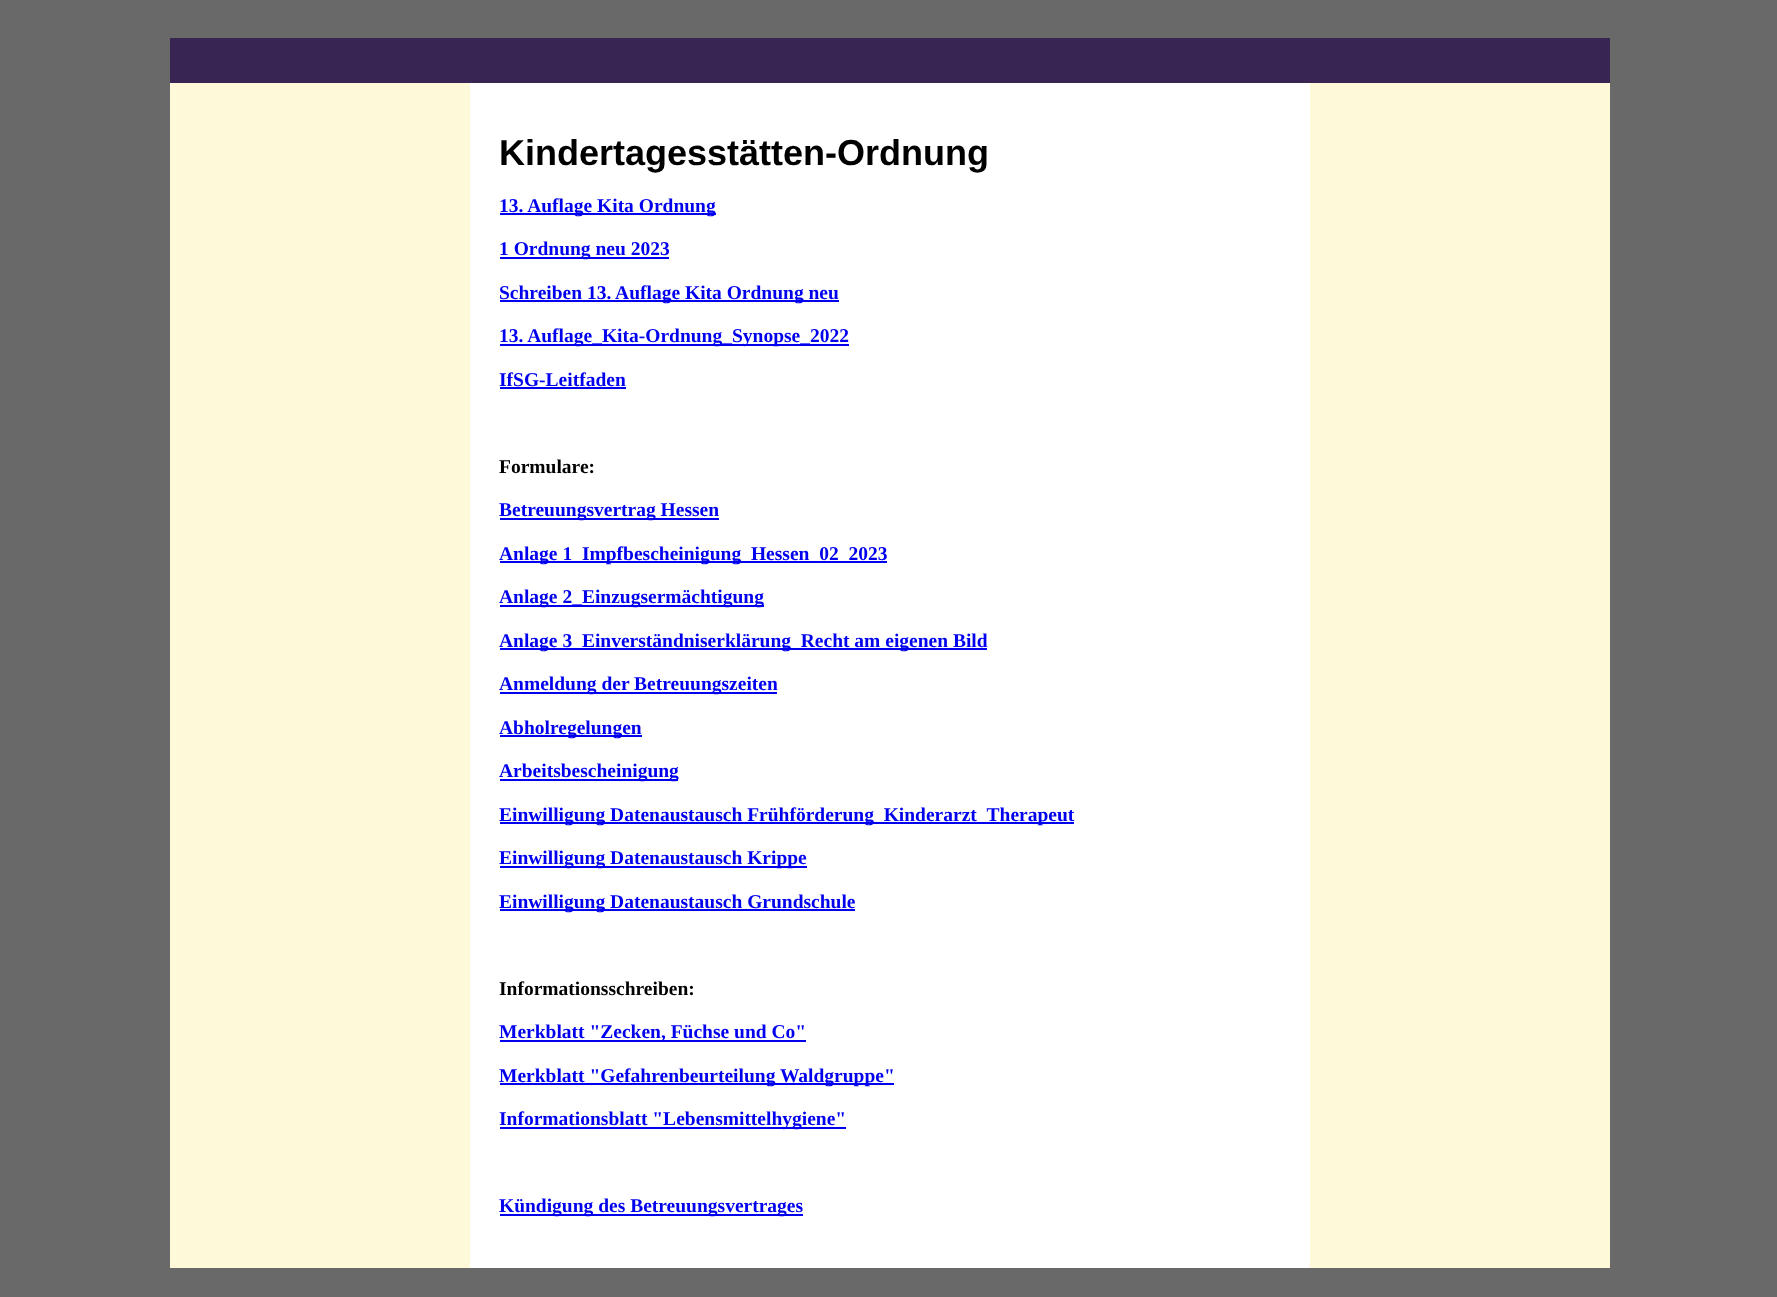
<svg xmlns="http://www.w3.org/2000/svg" width="1777" height="1297" viewBox="0 0 1777 1297">
  <rect width="100%" height="100%" fill="#696969"/>
  <rect x="170" y="38" width="1440" height="45" fill="#392554"/>
  <rect x="170" y="83" width="300" height="1185" fill="#fefad9"/>
  <rect x="470" y="83" width="840" height="1185" fill="#ffffff"/>
  <text x="499" y="165" font-family="Liberation Sans" font-size="36" font-weight="bold" fill="#000000">Kindertagesstätten-Ordnung</text>
  <rect x="500" y="213" width="216" height="2" fill="#0000ee"/>
  <text x="499" y="212" font-family="Liberation Serif" font-size="19.5" font-weight="bold" fill="#0000ee">13. Auflage Kita Ordnung</text>
  <rect x="500" y="257" width="169" height="2" fill="#0000ee"/>
  <text x="499" y="255" font-family="Liberation Serif" font-size="19.5" font-weight="bold" fill="#0000ee">1 Ordnung neu 2023</text>
  <rect x="500" y="300" width="339" height="2" fill="#0000ee"/>
  <text x="499" y="299" font-family="Liberation Serif" font-size="19.5" font-weight="bold" fill="#0000ee">Schreiben 13. Auflage Kita Ordnung neu</text>
  <rect x="500" y="344" width="349" height="2" fill="#0000ee"/>
  <text x="499" y="342" font-family="Liberation Serif" font-size="19.5" font-weight="bold" fill="#0000ee">13. Auflage_Kita-Ordnung_Synopse_2022</text>
  <text x="499" y="386" font-family="Liberation Serif" font-size="19.5" font-weight="bold" fill="#0000ee">IfSG-Leitfaden</text>
  <rect x="500" y="387" width="126" height="2" fill="#0000ee"/>
  <text x="499" y="473" font-family="Liberation Serif" font-size="19.5" font-weight="bold" fill="#000000">Formulare:</text>
  <rect x="500" y="518" width="219" height="2" fill="#0000ee"/>
  <text x="499" y="516" font-family="Liberation Serif" font-size="19.5" font-weight="bold" fill="#0000ee">Betreuungsvertrag Hessen</text>
  <rect x="500" y="561" width="387" height="2" fill="#0000ee"/>
  <text x="499" y="560" font-family="Liberation Serif" font-size="19.5" font-weight="bold" fill="#0000ee">Anlage 1_Impfbescheinigung_Hessen_02_2023</text>
  <rect x="500" y="605" width="264" height="2" fill="#0000ee"/>
  <text x="499" y="603" font-family="Liberation Serif" font-size="19.5" font-weight="bold" fill="#0000ee">Anlage 2_Einzugsermächtigung</text>
  <rect x="500" y="648" width="487" height="2" fill="#0000ee"/>
  <text x="499" y="647" font-family="Liberation Serif" font-size="19.5" font-weight="bold" fill="#0000ee">Anlage 3_Einverständniserklärung_Recht am eigenen Bild</text>
  <rect x="500" y="692" width="277" height="2" fill="#0000ee"/>
  <text x="499" y="690" font-family="Liberation Serif" font-size="19.5" font-weight="bold" fill="#0000ee">Anmeldung der Betreuungszeiten</text>
  <rect x="500" y="735" width="142" height="2" fill="#0000ee"/>
  <text x="499" y="734" font-family="Liberation Serif" font-size="19.5" font-weight="bold" fill="#0000ee">Abholregelungen</text>
  <rect x="500" y="779" width="178" height="2" fill="#0000ee"/>
  <text x="499" y="777" font-family="Liberation Serif" font-size="19.5" font-weight="bold" fill="#0000ee">Arbeitsbescheinigung</text>
  <rect x="500" y="822" width="574" height="2" fill="#0000ee"/>
  <text x="499" y="821" font-family="Liberation Serif" font-size="19.5" font-weight="bold" fill="#0000ee">Einwilligung Datenaustausch Frühförderung_Kinderarzt_Therapeut</text>
  <rect x="500" y="866" width="307" height="2" fill="#0000ee"/>
  <text x="499" y="864" font-family="Liberation Serif" font-size="19.5" font-weight="bold" fill="#0000ee">Einwilligung Datenaustausch Krippe</text>
  <rect x="500" y="909" width="355" height="2" fill="#0000ee"/>
  <text x="499" y="908" font-family="Liberation Serif" font-size="19.5" font-weight="bold" fill="#0000ee">Einwilligung Datenaustausch Grundschule</text>
  <text x="499" y="995" font-family="Liberation Serif" font-size="19.5" font-weight="bold" fill="#000000">Informationsschreiben:</text>
  <rect x="500" y="1040" width="306" height="2" fill="#0000ee"/>
  <text x="499" y="1038" font-family="Liberation Serif" font-size="19.5" font-weight="bold" fill="#0000ee">Merkblatt "Zecken, Füchse und Co"</text>
  <rect x="500" y="1083" width="394" height="2" fill="#0000ee"/>
  <text x="499" y="1082" font-family="Liberation Serif" font-size="19.5" font-weight="bold" fill="#0000ee">Merkblatt "Gefahrenbeurteilung Waldgruppe"</text>
  <rect x="500" y="1127" width="346" height="2" fill="#0000ee"/>
  <text x="499" y="1125" font-family="Liberation Serif" font-size="19.5" font-weight="bold" fill="#0000ee">Informationsblatt "Lebensmittelhygiene"</text>
  <rect x="500" y="1214" width="303" height="2" fill="#0000ee"/>
  <text x="499" y="1212" font-family="Liberation Serif" font-size="19.5" font-weight="bold" fill="#0000ee">Kündigung des Betreuungsvertrages</text>
  <rect x="1310" y="83" width="300" height="1185" fill="#fefad9"/>
</svg>
